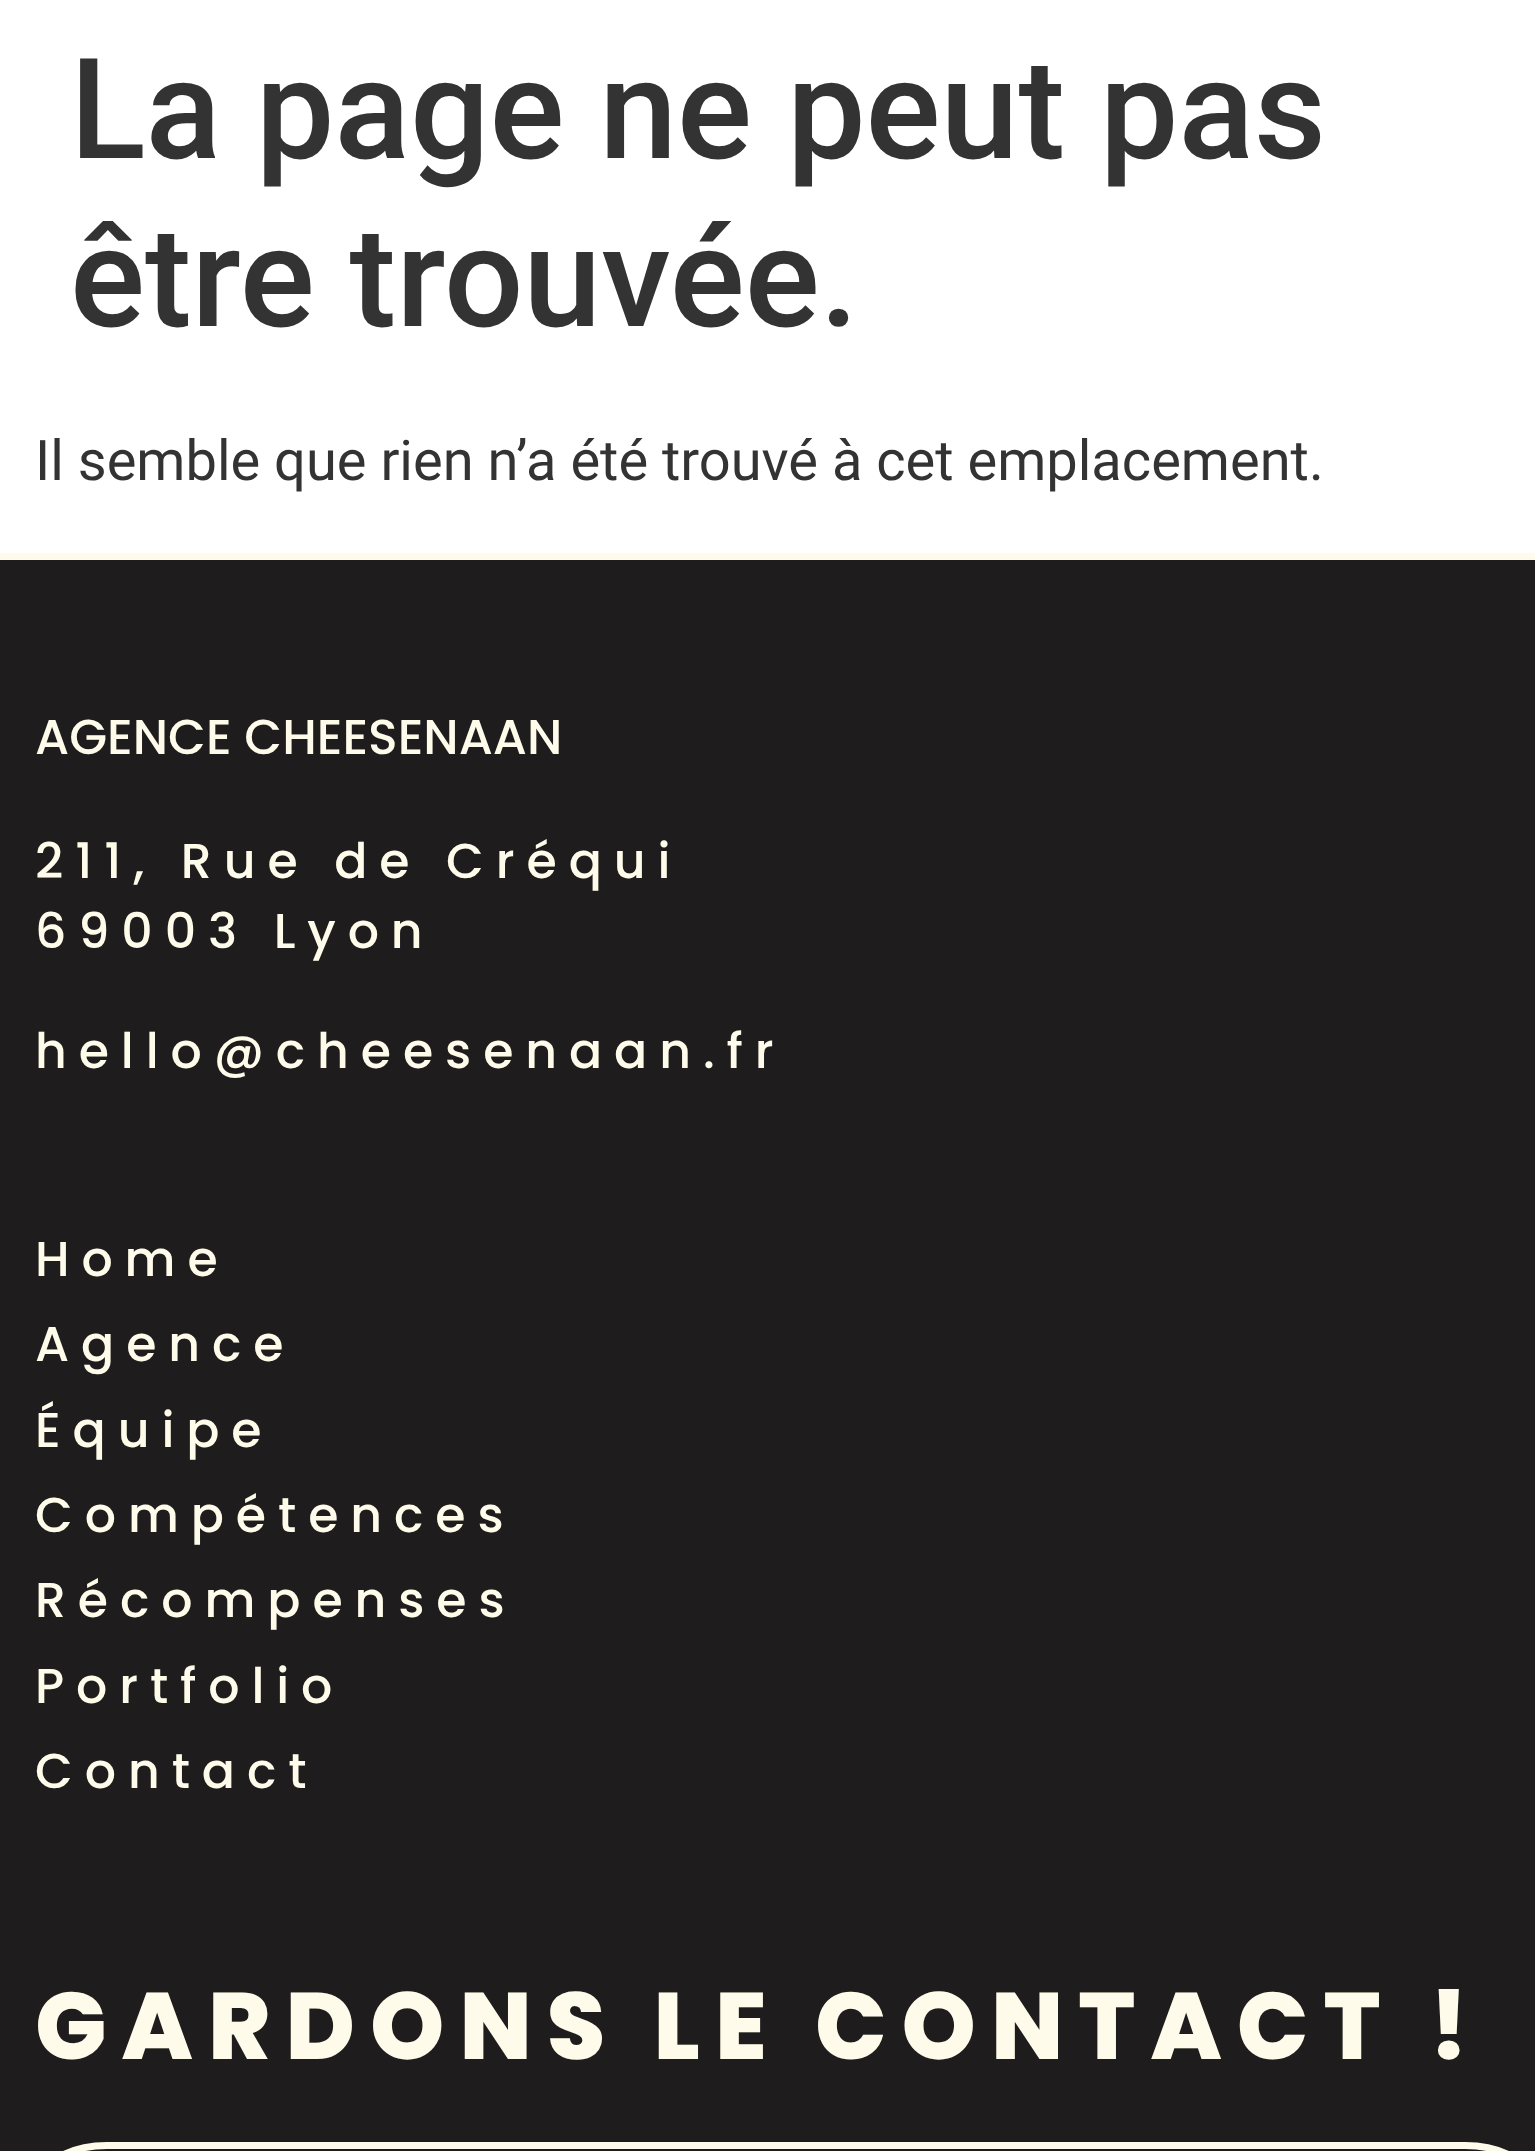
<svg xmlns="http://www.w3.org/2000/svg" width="1535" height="2151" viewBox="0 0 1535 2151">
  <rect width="100%" height="100%" fill="#ffffff"/>
  <text x="70" y="158" font-family="Roboto" font-size="140" font-weight="500" fill="#333333">La page ne peut pas</text>
  <text x="70" y="326" font-family="Roboto" font-size="140" font-weight="500" fill="#333333">être trouvée.</text>
  <text x="35" y="480" font-family="Roboto" font-size="56" fill="#333333">Il semble que rien n’a été trouvé à cet emplacement.</text>
  <rect x="0" y="560" width="1535" height="1591" fill="#1e1c1c"/>
  <rect x="0" y="553" width="1535" height="7" fill="#fffbea"/>
  <text x="35" y="754" font-family="Poppins" font-size="49" font-weight="500" fill="#fffbea">AGENCE CHEESENAAN</text>
  <text x="35" y="878" font-family="Poppins" font-size="49" font-weight="500" letter-spacing="11.9" fill="#fffbea">211, Rue de Créqui</text>
  <text x="35" y="948" font-family="Poppins" font-size="49" font-weight="500" letter-spacing="11.9" fill="#fffbea">69003 Lyon</text>
  <text x="35" y="1068" font-family="Poppins" font-size="49" font-weight="500" letter-spacing="11.9" fill="#fffbea">hello@cheesenaan.fr</text>
  <text x="35" y="1276" font-family="Poppins" font-size="49" font-weight="500" letter-spacing="11.9" fill="#fffbea">Home</text>
  <text x="35" y="1361" font-family="Poppins" font-size="49" font-weight="500" letter-spacing="11.9" fill="#fffbea">Agence</text>
  <text x="35" y="1447" font-family="Poppins" font-size="49" font-weight="500" letter-spacing="11.9" fill="#fffbea">Équipe</text>
  <text x="35" y="1532" font-family="Poppins" font-size="49" font-weight="500" letter-spacing="11.9" fill="#fffbea">Compétences</text>
  <text x="35" y="1617" font-family="Poppins" font-size="49" font-weight="500" letter-spacing="11.9" fill="#fffbea">Récompenses</text>
  <text x="35" y="1703" font-family="Poppins" font-size="49" font-weight="500" letter-spacing="11.9" fill="#fffbea">Portfolio</text>
  <text x="35" y="1788" font-family="Poppins" font-size="49" font-weight="500" letter-spacing="11.9" fill="#fffbea">Contact</text>
  <text x="35" y="2059" font-family="Poppins" font-size="94.5" font-weight="800" letter-spacing="15.05" fill="#fffbea">GARDONS LE CONTACT !</text>
  <rect x="38.5" y="2145.5" width="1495" height="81" rx="68.5" fill="none" stroke="#fffbea" stroke-width="7"/>
</svg>
